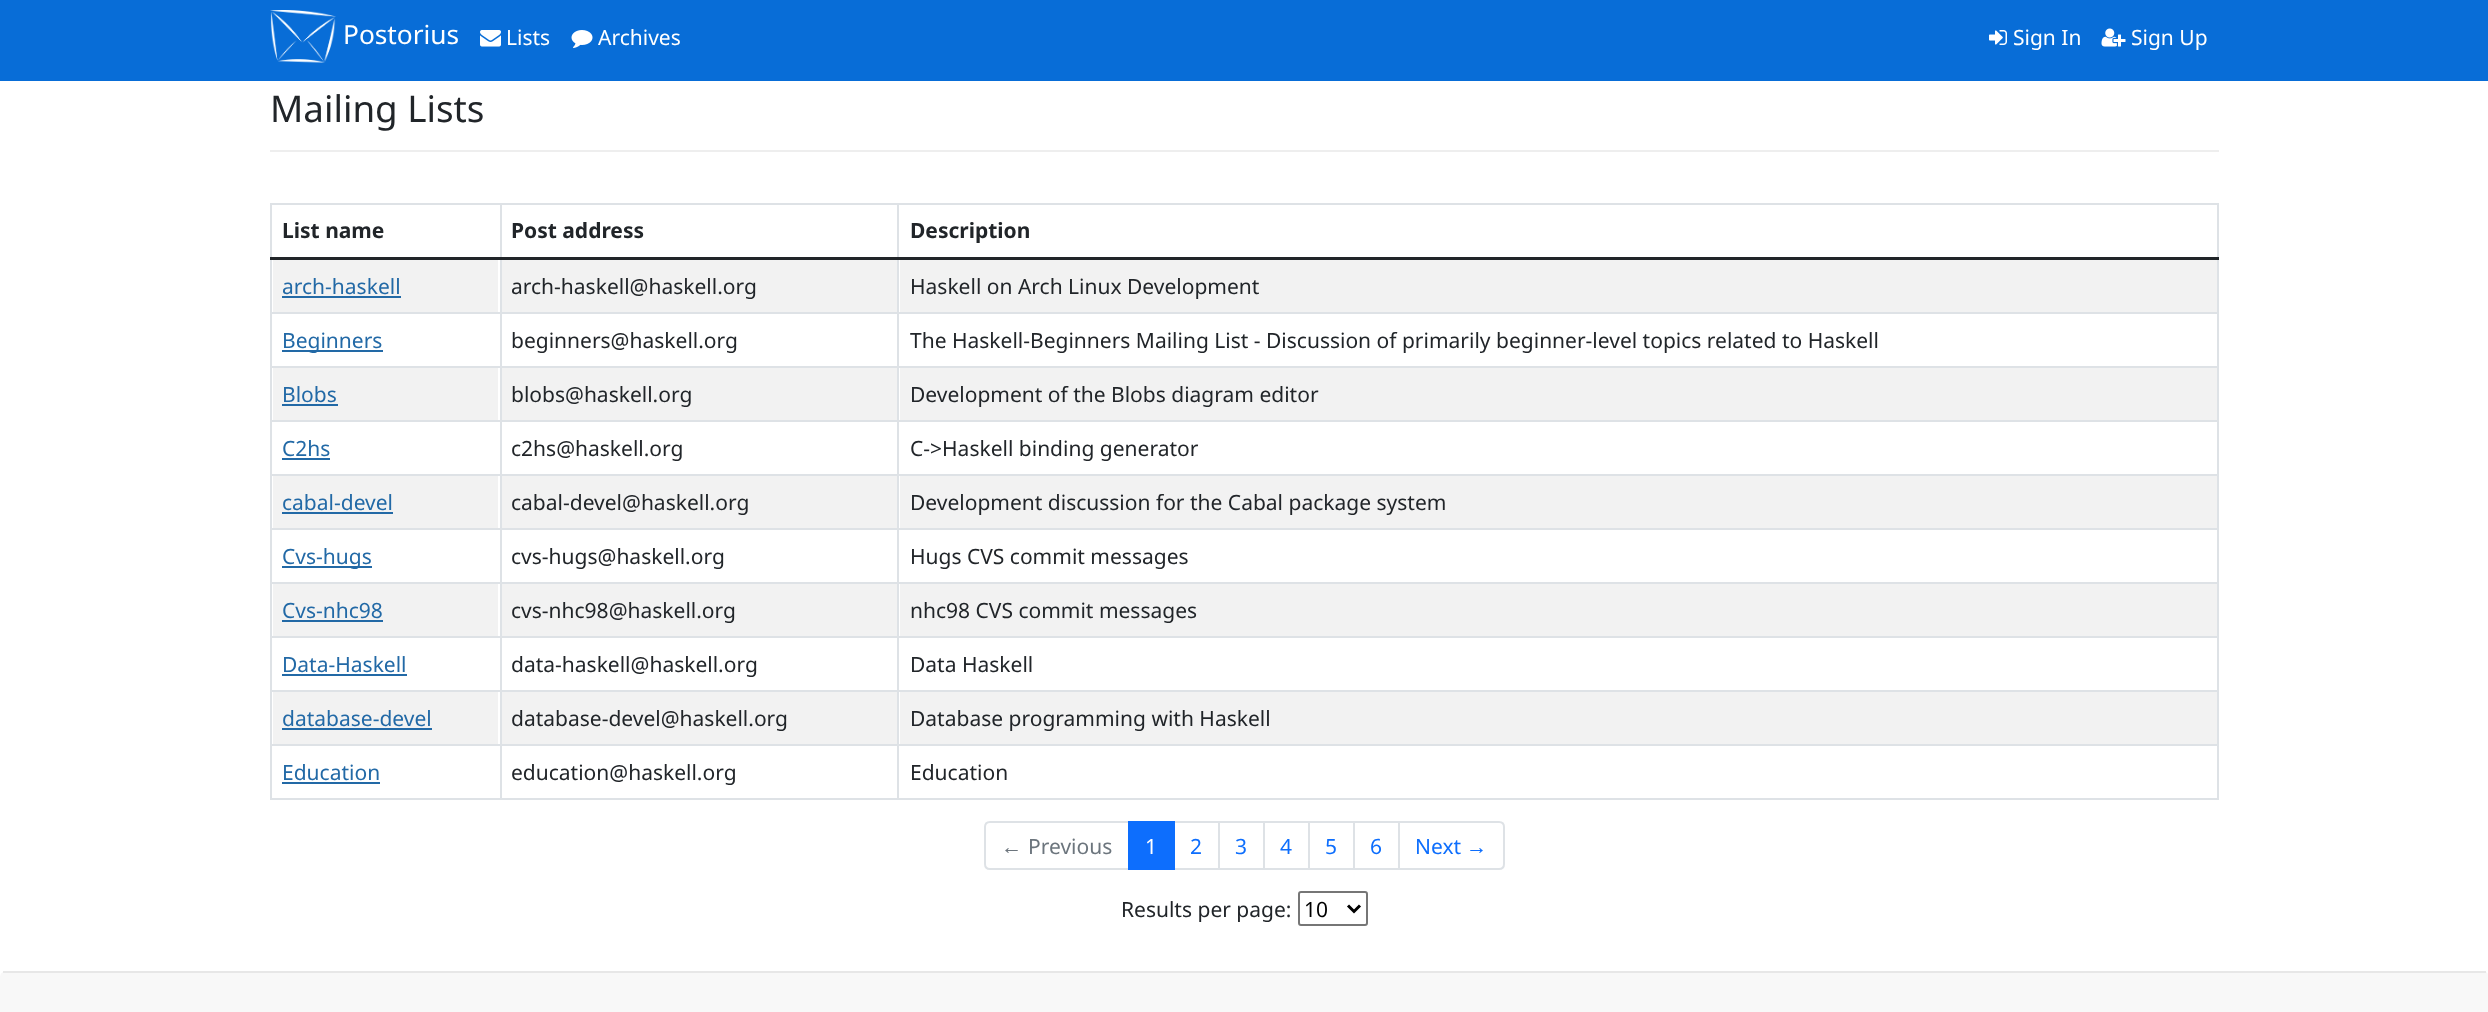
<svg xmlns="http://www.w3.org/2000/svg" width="2488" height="1012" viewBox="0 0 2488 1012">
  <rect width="100%" height="100%" fill="#ffffff"/>
  <rect x="0" y="0" width="2488" height="81" fill="#086dd7"/>
  <image x="270" y="10" width="66" height="53" href="img1.png"/>
  <text x="343" y="44" font-family="Noto Sans" font-size="26.25" fill="#ffffff">Postorius</text>
  <image x="480" y="30" width="21" height="17" href="img2.png"/>
  <text x="506" y="45" font-family="Noto Sans" font-size="21" fill="#ffffff">Lists</text>
  <image x="571" y="30" width="22" height="18" href="img3.png"/>
  <text x="598" y="45" font-family="Noto Sans" font-size="21" fill="#ffffff">Archives</text>
  <image x="1989" y="30" width="18" height="15" href="img4.png"/>
  <text x="2013" y="45" font-family="Noto Sans" font-size="21" fill="#ffffff">Sign In</text>
  <image x="2101" y="28" width="25" height="19" href="img5.png"/>
  <text x="2131" y="45" font-family="Noto Sans" font-size="21" fill="#ffffff">Sign Up</text>
  <rect x="270" y="150" width="1949" height="2" fill="#eeeeee"/>
  <text x="270" y="122" font-family="Noto Sans" font-size="36.75" fill="#212529">Mailing Lists</text>
  <rect x="270" y="203" width="1949" height="2" fill="#dee2e6"/>
  <text x="282" y="238" font-family="Noto Sans" font-size="21" font-weight="bold" fill="#212529">List name</text>
  <text x="511" y="238" font-family="Noto Sans" font-size="21" font-weight="bold" fill="#212529">Post address</text>
  <text x="910" y="238" font-family="Noto Sans" font-size="21" font-weight="bold" fill="#212529">Description</text>
  <rect x="270" y="312" width="1949" height="2" fill="#dee2e6"/>
  <rect x="270" y="366" width="1949" height="2" fill="#dee2e6"/>
  <rect x="270" y="420" width="1949" height="2" fill="#dee2e6"/>
  <rect x="270" y="474" width="1949" height="2" fill="#dee2e6"/>
  <rect x="270" y="528" width="1949" height="2" fill="#dee2e6"/>
  <rect x="270" y="582" width="1949" height="2" fill="#dee2e6"/>
  <rect x="270" y="636" width="1949" height="2" fill="#dee2e6"/>
  <rect x="270" y="690" width="1949" height="2" fill="#dee2e6"/>
  <rect x="270" y="744" width="1949" height="2" fill="#dee2e6"/>
  <rect x="270" y="798" width="1949" height="2" fill="#dee2e6"/>
  <rect x="270" y="203" width="2" height="597" fill="#dee2e6"/>
  <rect x="500" y="203" width="2" height="597" fill="#dee2e6"/>
  <rect x="2217" y="203" width="2" height="597" fill="#dee2e6"/>
  <rect x="897" y="203" width="2" height="597" fill="#dee2e6"/>
  <rect x="270" y="257" width="1949" height="3" fill="#212529"/>
  <rect x="273" y="260" width="225" height="52" fill="#f2f2f2"/>
  <text x="282" y="294" font-family="Noto Sans" font-size="21" fill="#2269a6">arch-haskell</text>
  <rect x="282" y="296" width="119" height="2" fill="#2269a6"/>
  <rect x="502" y="260" width="395" height="52" fill="#f2f2f2"/>
  <text x="511" y="294" font-family="Noto Sans" font-size="21" fill="#212529">arch-haskell@haskell.org</text>
  <rect x="900" y="260" width="1317" height="52" fill="#f2f2f2"/>
  <text x="910" y="294" font-family="Noto Sans" font-size="21" fill="#212529">Haskell on Arch Linux Development</text>
  <rect x="282" y="350" width="101" height="2" fill="#2269a6"/>
  <text x="282" y="348" font-family="Noto Sans" font-size="21" fill="#2269a6">Beginners</text>
  <text x="511" y="348" font-family="Noto Sans" font-size="21" fill="#212529">beginners@haskell.org</text>
  <text x="910" y="348" font-family="Noto Sans" font-size="21" fill="#212529">The Haskell-Beginners Mailing List - Discussion of primarily beginner-level topics related to Haskell</text>
  <rect x="273" y="368" width="225" height="52" fill="#f2f2f2"/>
  <text x="282" y="402" font-family="Noto Sans" font-size="21" fill="#2269a6">Blobs</text>
  <rect x="282" y="404" width="56" height="2" fill="#2269a6"/>
  <rect x="502" y="368" width="395" height="52" fill="#f2f2f2"/>
  <text x="511" y="402" font-family="Noto Sans" font-size="21" fill="#212529">blobs@haskell.org</text>
  <rect x="900" y="368" width="1317" height="52" fill="#f2f2f2"/>
  <text x="910" y="402" font-family="Noto Sans" font-size="21" fill="#212529">Development of the Blobs diagram editor</text>
  <text x="282" y="456" font-family="Noto Sans" font-size="21" fill="#2269a6">C2hs</text>
  <rect x="282" y="458" width="48" height="2" fill="#2269a6"/>
  <text x="511" y="456" font-family="Noto Sans" font-size="21" fill="#212529">c2hs@haskell.org</text>
  <text x="910" y="456" font-family="Noto Sans" font-size="21" fill="#212529">C-&gt;Haskell binding generator</text>
  <rect x="273" y="476" width="225" height="52" fill="#f2f2f2"/>
  <text x="282" y="510" font-family="Noto Sans" font-size="21" fill="#2269a6">cabal-devel</text>
  <rect x="282" y="512" width="111" height="2" fill="#2269a6"/>
  <rect x="502" y="476" width="395" height="52" fill="#f2f2f2"/>
  <text x="511" y="510" font-family="Noto Sans" font-size="21" fill="#212529">cabal-devel@haskell.org</text>
  <rect x="900" y="476" width="1317" height="52" fill="#f2f2f2"/>
  <text x="910" y="510" font-family="Noto Sans" font-size="21" fill="#212529">Development discussion for the Cabal package system</text>
  <rect x="282" y="566" width="90" height="2" fill="#2269a6"/>
  <text x="282" y="564" font-family="Noto Sans" font-size="21" fill="#2269a6">Cvs-hugs</text>
  <text x="511" y="564" font-family="Noto Sans" font-size="21" fill="#212529">cvs-hugs@haskell.org</text>
  <text x="910" y="564" font-family="Noto Sans" font-size="21" fill="#212529">Hugs CVS commit messages</text>
  <rect x="273" y="584" width="225" height="52" fill="#f2f2f2"/>
  <text x="282" y="618" font-family="Noto Sans" font-size="21" fill="#2269a6">Cvs-nhc98</text>
  <rect x="282" y="620" width="101" height="2" fill="#2269a6"/>
  <rect x="502" y="584" width="395" height="52" fill="#f2f2f2"/>
  <text x="511" y="618" font-family="Noto Sans" font-size="21" fill="#212529">cvs-nhc98@haskell.org</text>
  <rect x="900" y="584" width="1317" height="52" fill="#f2f2f2"/>
  <text x="910" y="618" font-family="Noto Sans" font-size="21" fill="#212529">nhc98 CVS commit messages</text>
  <text x="282" y="672" font-family="Noto Sans" font-size="21" fill="#2269a6">Data-Haskell</text>
  <rect x="282" y="674" width="125" height="2" fill="#2269a6"/>
  <text x="511" y="672" font-family="Noto Sans" font-size="21" fill="#212529">data-haskell@haskell.org</text>
  <text x="910" y="672" font-family="Noto Sans" font-size="21" fill="#212529">Data Haskell</text>
  <rect x="273" y="692" width="225" height="52" fill="#f2f2f2"/>
  <text x="282" y="726" font-family="Noto Sans" font-size="21" fill="#2269a6">database-devel</text>
  <rect x="282" y="728" width="150" height="2" fill="#2269a6"/>
  <rect x="502" y="692" width="395" height="52" fill="#f2f2f2"/>
  <text x="511" y="726" font-family="Noto Sans" font-size="21" fill="#212529">database-devel@haskell.org</text>
  <rect x="900" y="692" width="1317" height="52" fill="#f2f2f2"/>
  <text x="910" y="726" font-family="Noto Sans" font-size="21" fill="#212529">Database programming with Haskell</text>
  <text x="282" y="780" font-family="Noto Sans" font-size="21" fill="#2269a6">Education</text>
  <rect x="282" y="782" width="98" height="2" fill="#2269a6"/>
  <text x="511" y="780" font-family="Noto Sans" font-size="21" fill="#212529">education@haskell.org</text>
  <text x="910" y="780" font-family="Noto Sans" font-size="21" fill="#212529">Education</text>
  <path d="M990 822H1129V869H990C987 869 985 867 985 864V827C985 824 987 822 990 822Z" fill="none" stroke="#dee2e6" stroke-width="2"/>
  <text x="1001" y="854" font-family="Liberation Sans" font-size="21" fill="#6c757d">←</text>
  <text x="1028" y="854" font-family="Noto Sans" font-size="21" fill="#6c757d">Previous</text>
  <rect x="1174" y="822" width="45" height="47" fill="none" stroke="#dee2e6" stroke-width="2"/>
  <rect x="1128" y="821" width="47" height="49" fill="#0d6efd"/>
  <text x="1145" y="854" font-family="Noto Sans" font-size="21" fill="#ffffff">1</text>
  <text x="1190" y="854" font-family="Noto Sans" font-size="21" fill="#0d6efd">2</text>
  <rect x="1219" y="822" width="45" height="47" fill="none" stroke="#dee2e6" stroke-width="2"/>
  <text x="1235" y="854" font-family="Noto Sans" font-size="21" fill="#0d6efd">3</text>
  <rect x="1264" y="822" width="45" height="47" fill="none" stroke="#dee2e6" stroke-width="2"/>
  <text x="1280" y="854" font-family="Noto Sans" font-size="21" fill="#0d6efd">4</text>
  <rect x="1309" y="822" width="45" height="47" fill="none" stroke="#dee2e6" stroke-width="2"/>
  <text x="1325" y="854" font-family="Noto Sans" font-size="21" fill="#0d6efd">5</text>
  <rect x="1354" y="822" width="45" height="47" fill="none" stroke="#dee2e6" stroke-width="2"/>
  <text x="1370" y="854" font-family="Noto Sans" font-size="21" fill="#0d6efd">6</text>
  <path d="M1399 822H1499C1502 822 1504 824 1504 827V864C1504 867 1502 869 1499 869H1399Z" fill="#ffffff" stroke="#dee2e6" stroke-width="2"/>
  <text x="1415" y="854" font-family="Noto Sans" font-size="21" fill="#0d6efd">Next</text>
  <text x="1466" y="854" font-family="Liberation Sans" font-size="21" fill="#0d6efd">→</text>
  <text x="1121" y="917" font-family="Noto Sans" font-size="21" fill="#212529">Results per page:</text>
  <rect x="1299" y="892" width="68" height="33" rx="2" fill="none" stroke="#767676" stroke-width="2"/>
  <path d="M1348 905.5L1354 911.5L1360 905.5" fill="none" stroke="#000000" stroke-width="3"/>
  <text x="1304" y="917" font-family="Noto Sans" font-size="21" fill="#000000">10</text>
  <rect x="0" y="971" width="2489" height="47" rx="6" fill="#f8f8f8"/>
  <rect x="3" y="971" width="2483" height="2" fill="#e7e7e7"/>
</svg>
